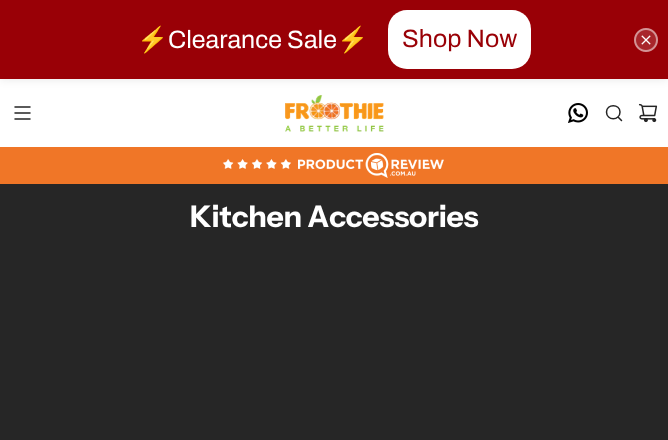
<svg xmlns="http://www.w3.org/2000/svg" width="668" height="440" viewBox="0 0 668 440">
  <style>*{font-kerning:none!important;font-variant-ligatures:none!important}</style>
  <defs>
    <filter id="blur1" x="-50%" y="-200%" width="200%" height="500%"><feGaussianBlur stdDeviation="5"/></filter>
    <clipPath id="clip1"><rect x="137" y="10" width="231" height="59"/></clipPath>
  </defs>
  <rect width="100%" height="100%" fill="#ffffff"/>
  <rect x="0" y="0" width="668" height="79" fill="#212b36" fill-opacity="0.1" filter="url(#blur1)"/>
  <rect x="0" y="0" width="668" height="79" fill="#990006"/>
  <g clip-path="url(#clip1)">
    <text x="137" y="48" font-family="Noto Color Emoji" font-size="25" fill="#ffffff">⚡</text>
  </g>
  <text x="168" y="48" font-family="Archivo" font-size="25" font-weight="600" fill="#ffffff">Clearance Sale</text>
  <text x="337" y="48" font-family="Noto Color Emoji" font-size="25" fill="#ffffff">⚡</text>
  <rect x="388" y="10" width="143" height="59" rx="19" fill="#ffffff"/>
  <text x="402" y="47" font-family="Archivo" font-size="25" font-weight="600" fill="#990006">Shop Now</text>
  <image x="634" y="28" width="24" height="24" href="img1.png"/>
  <path d="M15 107H30M15 113H30M15 119H30" fill="none" stroke="#242424" stroke-width="1.5" stroke-linecap="round" stroke-linejoin="round"/>
  <image x="285" y="95" width="99" height="37" href="img2.png"/>
  <image x="568" y="103" width="20" height="20" href="img3.png"/>
  <path d="M618 117L621.5 120.5M606.5 112C606.5 121 620 121 620 112C620 103.5 606.5 103.5 606.5 112Z" fill="none" stroke="#242424" stroke-width="1.5" stroke-linecap="round" stroke-linejoin="round"/>
  <image x="638" y="103" width="20" height="20" href="img4.png"/>
  <rect x="0" y="147" width="668" height="37" fill="#f07627"/>
  <image x="222" y="153" width="222" height="25" href="img5.png"/>
  <rect x="0" y="184" width="668" height="256" fill="#262626"/>
  <text x="190" y="227" font-family="Instrument Sans" font-size="30" font-weight="bold" letter-spacing="-0.25" fill="#ffffff">Kitchen Accessories</text>
</svg>
